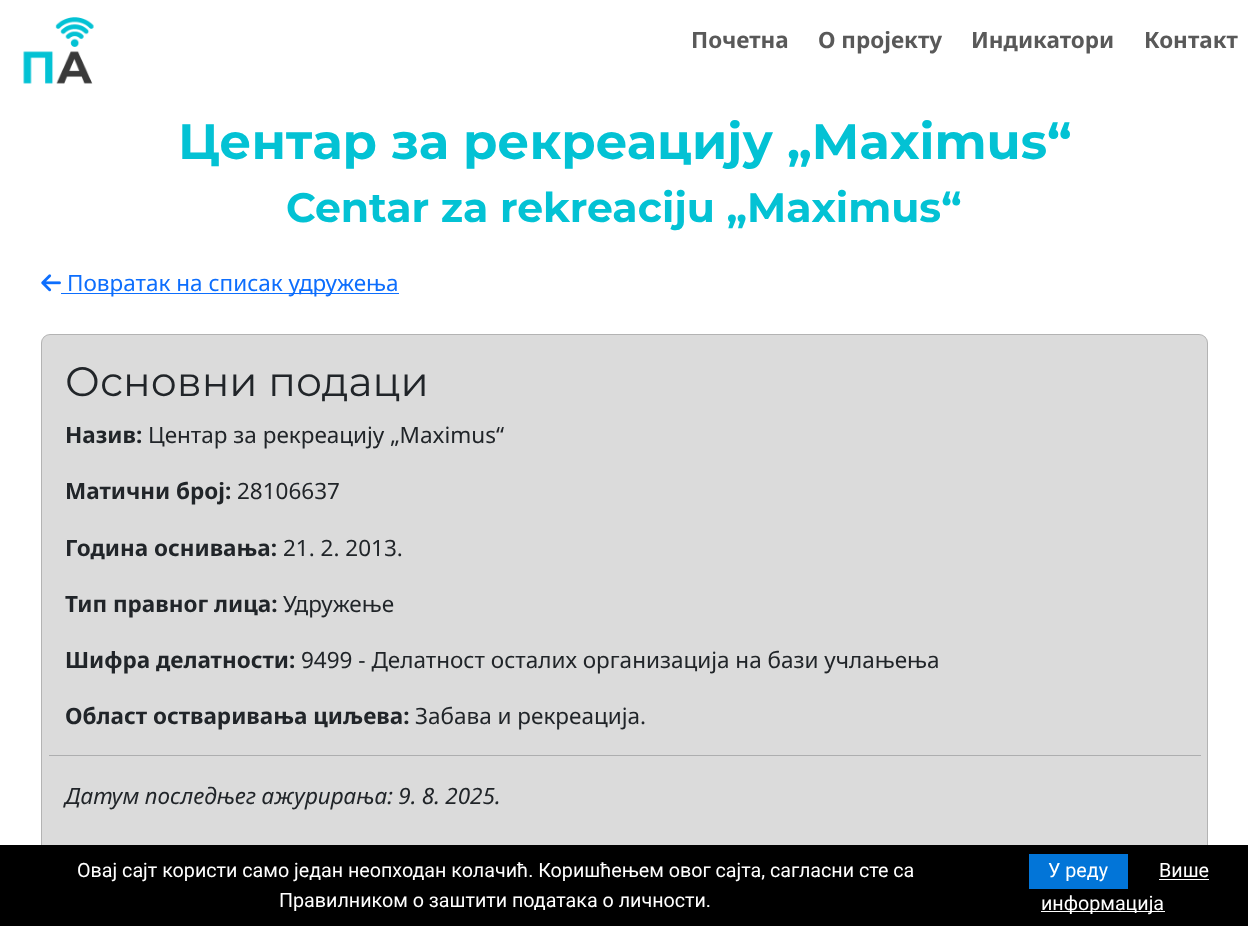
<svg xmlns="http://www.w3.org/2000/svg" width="1248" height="926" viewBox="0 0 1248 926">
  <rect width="100%" height="100%" fill="#ffffff"/>
  <image x="23" y="17" width="71" height="67" href="img1.png"/>
  <text x="691" y="48" font-family="Noto Sans" font-size="22.5" font-weight="bold" fill="#595959">Почетна</text>
  <text x="818" y="48" font-family="Noto Sans" font-size="22.5" font-weight="bold" fill="#595959">О пројекту</text>
  <text x="971" y="48" font-family="Noto Sans" font-size="22.5" font-weight="bold" fill="#595959">Индикатори</text>
  <text x="1144" y="48" font-family="Noto Sans" font-size="22.5" font-weight="bold" fill="#595959">Контакт</text>
  <text x="178" y="159" font-family="Montserrat" font-size="49.7" font-weight="bold" fill="#03c2d4">Центар за рекреацију „Maximus“</text>
  <text x="286" y="222" font-family="Montserrat" font-size="41" font-weight="bold" fill="#03c2d4">Centar za rekreaciju „Maximus“</text>
  <image x="41" y="274" width="20" height="18" href="img2.png"/>
  <rect x="61" y="293" width="338" height="1" fill="#0d6efd"/>
  <text x="67" y="291" font-family="Noto Sans" font-size="22.5" fill="#0d6efd">Повратак на списак удружења</text>
  <rect x="41" y="334" width="1167" height="525" rx="9" fill="#dbdbdb"/>
  <rect x="41.5" y="334.5" width="1166" height="524" rx="8.5" fill="none" stroke="#000000" stroke-opacity="0.18"/>
  <text x="65" y="396" font-family="Montserrat" font-size="41" fill="#212529">Основни подаци</text>
  <text x="65" y="443" font-family="Noto Sans" font-size="22.5" font-weight="bold" fill="#212529">Назив:</text>
  <text x="148" y="443" font-family="Noto Sans" font-size="22.5" fill="#212529">Центар за рекреацију „Maximus“</text>
  <text x="65" y="499" font-family="Noto Sans" font-size="22.5" font-weight="bold" fill="#212529">Матични број:</text>
  <text x="237" y="499" font-family="Noto Sans" font-size="22.5" fill="#212529">28106637</text>
  <text x="65" y="556" font-family="Noto Sans" font-size="22.5" font-weight="bold" fill="#212529">Година оснивања:</text>
  <text x="283" y="556" font-family="Noto Sans" font-size="22.5" fill="#212529">21. 2. 2013.</text>
  <text x="65" y="612" font-family="Noto Sans" font-size="22.5" font-weight="bold" fill="#212529">Тип правног лица:</text>
  <text x="283" y="612" font-family="Noto Sans" font-size="22.5" fill="#212529">Удружење</text>
  <text x="65" y="668" font-family="Noto Sans" font-size="22.5" font-weight="bold" fill="#212529">Шифра делатности:</text>
  <text x="301" y="668" font-family="Noto Sans" font-size="22.5" fill="#212529">9499 - Делатност осталих организација на бази учлањења</text>
  <text x="65" y="724" font-family="Noto Sans" font-size="22.5" font-weight="bold" fill="#212529">Област остваривања циљева:</text>
  <text x="415" y="724" font-family="Noto Sans" font-size="22.5" fill="#212529">Забава и рекреација.</text>
  <rect x="49" y="755" width="1152" height="1" fill="#adaeaf"/>
  <text x="65" y="804" word-spacing="-0.5" font-family="Noto Sans" font-size="22.5" font-style="italic" fill="#212529">Датум последњег ажурирања: 9. 8. 2025.</text>
  <rect x="0" y="845" width="1248" height="81" fill="#000000"/>
  <text x="77" y="877" font-family="Roboto" font-size="19.7" fill="#ffffff">Овај сајт користи само један неопходан колачић. Коришћењем овог сајта, сагласни сте са</text>
  <text x="279" y="907" font-family="Roboto" font-size="19.7" fill="#ffffff">Правилником о заштити података о личности.</text>
  <rect x="1029" y="854" width="99" height="35" fill="#0275d8"/>
  <text x="1048" y="877" font-family="Roboto" font-size="19.7" fill="#ffffff">У реду</text>
  <text x="1159" y="877" font-family="Roboto" font-size="19.7" fill="#ffffff">Више</text>
  <rect x="1159" y="879" width="50" height="1" fill="#ffffff"/>
  <rect x="1041" y="911" width="124" height="1" fill="#ffffff"/>
  <text x="1041" y="910" font-family="Roboto" font-size="19.7" fill="#ffffff">информација</text>
</svg>
